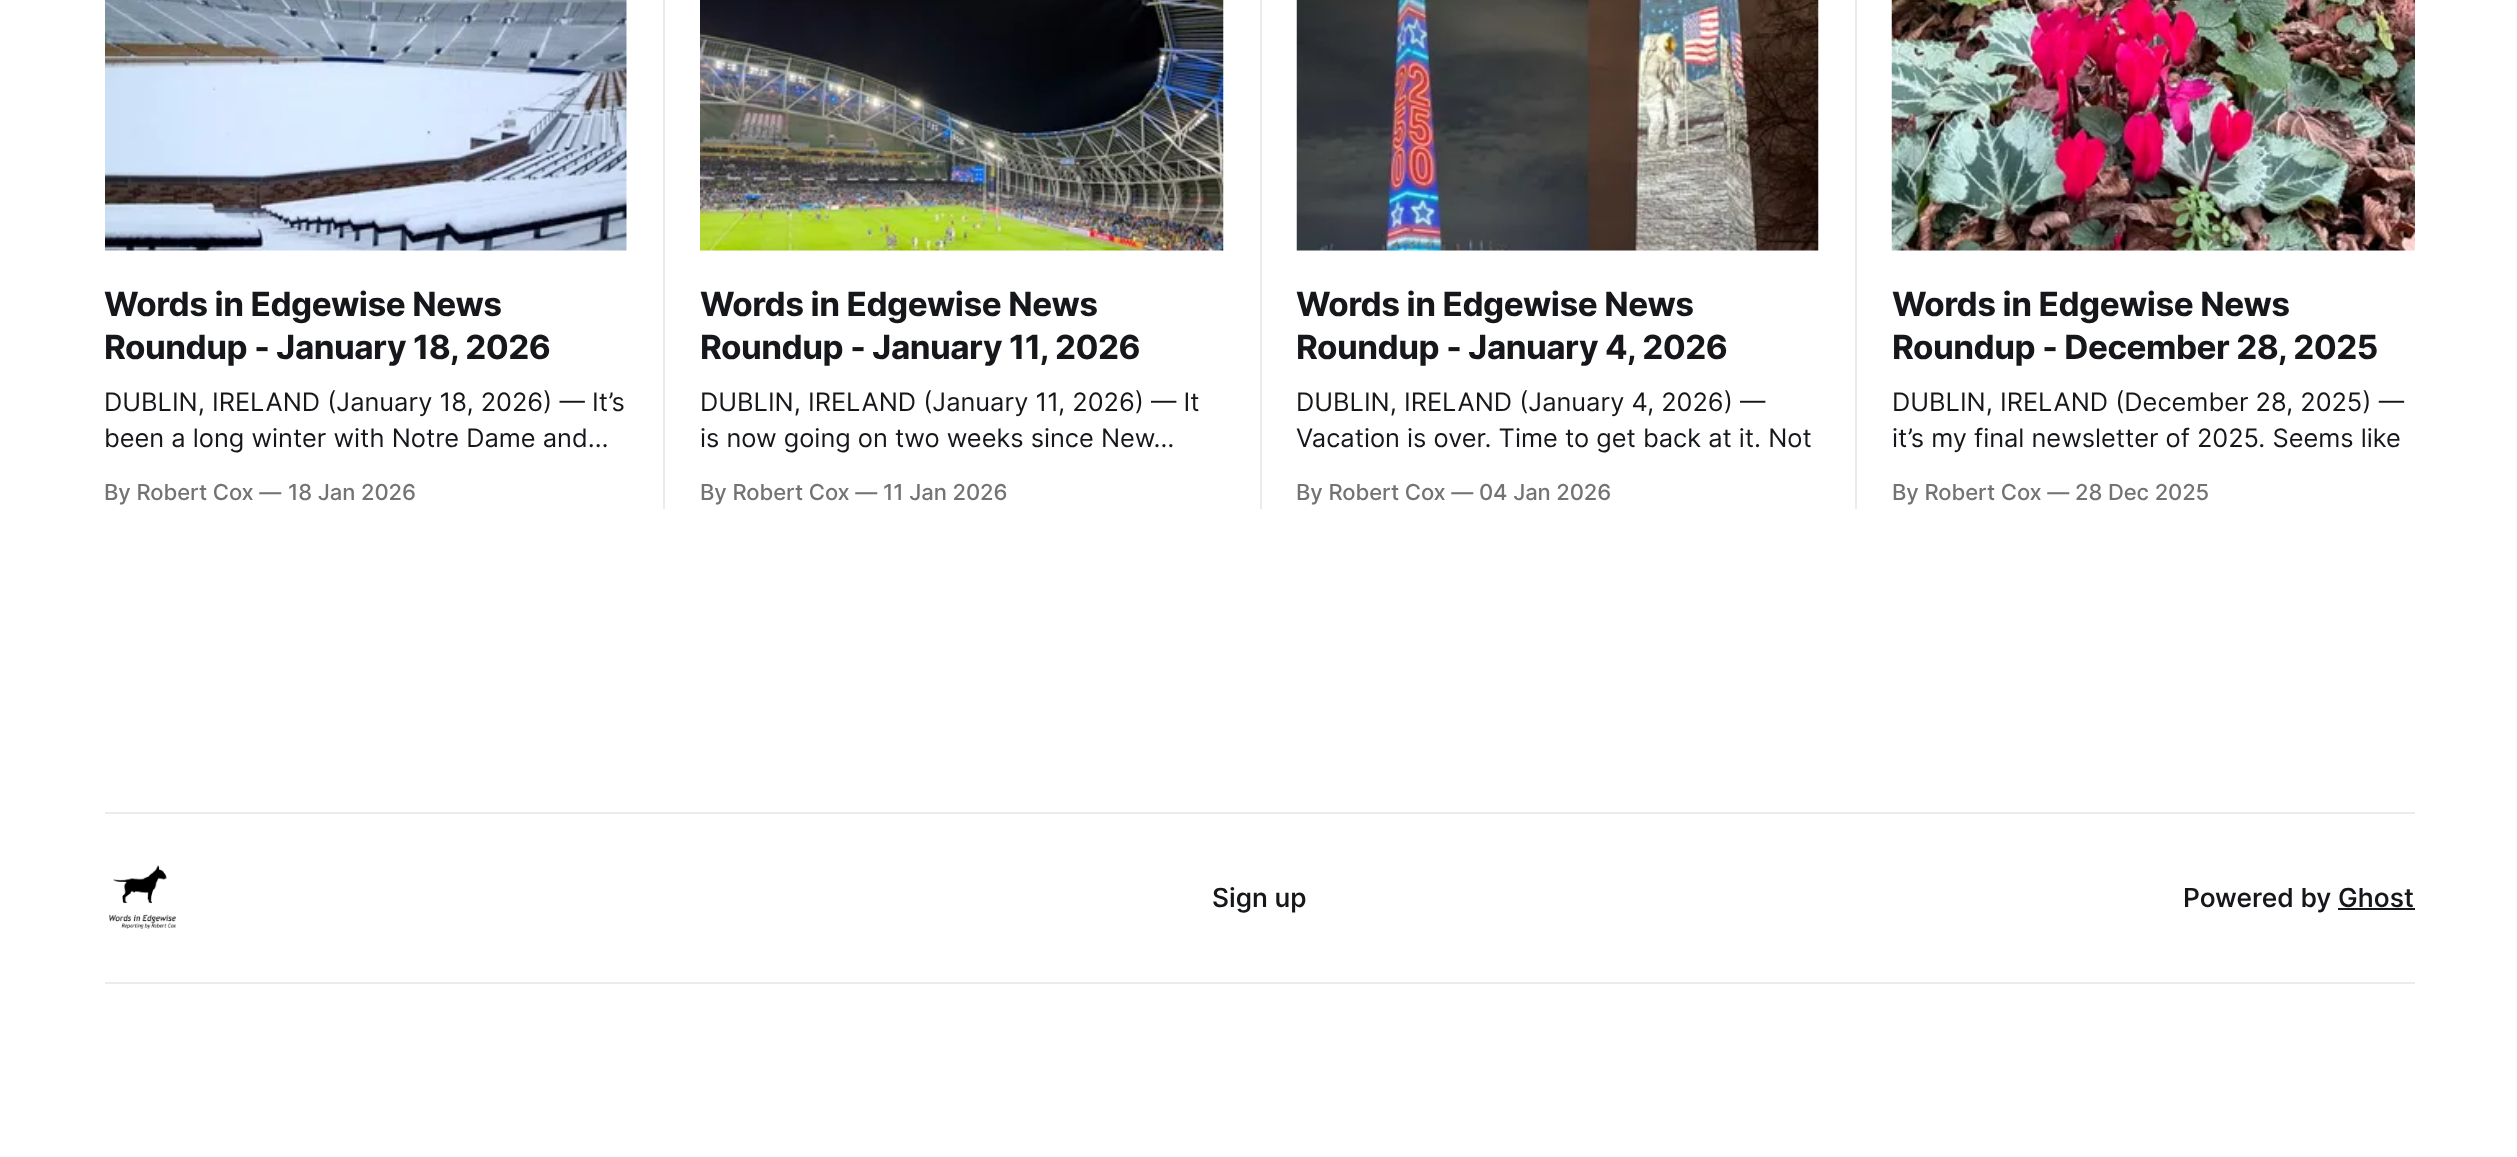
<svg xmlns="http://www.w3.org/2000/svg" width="2517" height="1157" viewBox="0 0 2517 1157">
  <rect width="100%" height="100%" fill="#ffffff"/>
  <image x="105" y="0" width="522" height="251" href="img1.png"/>
  <text x="104" y="316" font-family="Inter" font-size="33.25" font-weight="bold" letter-spacing="-0.5" fill="#15171a">Words in Edgewise News</text>
  <text x="104" y="359" font-family="Inter" font-size="33.25" font-weight="bold" letter-spacing="-0.5" fill="#15171a">Roundup - January 18, 2026</text>
  <text x="104" y="411" font-family="Inter" font-size="25.4" fill="#15171a">DUBLIN, IRELAND (January 18, 2026) — It’s</text>
  <text x="104" y="447" font-family="Inter" font-size="25.4" fill="#15171a">been a long winter with Notre Dame and…</text>
  <text x="104" y="500" font-family="'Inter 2'" font-size="22" font-weight="500" letter-spacing="-0.1" fill="#737373">By Robert Cox —</text>
  <text x="288" y="500" font-family="'Inter 2'" font-size="22" font-weight="500" letter-spacing="-0.1" fill="#737373">18 Jan 2026</text>
  <rect x="663" y="0" width="2" height="509" fill="#ebebeb"/>
  <image x="700" y="0" width="524" height="251" href="img2.png"/>
  <text x="700" y="316" font-family="Inter" font-size="33.25" font-weight="bold" letter-spacing="-0.5" fill="#15171a">Words in Edgewise News</text>
  <text x="700" y="359" font-family="Inter" font-size="33.25" font-weight="bold" letter-spacing="-0.5" fill="#15171a">Roundup - January 11, 2026</text>
  <text x="700" y="411" font-family="Inter" font-size="25.4" fill="#15171a">DUBLIN, IRELAND (January 11, 2026) — It</text>
  <text x="700" y="447" font-family="Inter" font-size="25.4" fill="#15171a">is now going on two weeks since New…</text>
  <text x="700" y="500" font-family="'Inter 2'" font-size="22" font-weight="500" letter-spacing="-0.1" fill="#737373">By Robert Cox —</text>
  <text x="883" y="500" font-family="'Inter 2'" font-size="22" font-weight="500" letter-spacing="-0.1" fill="#737373">11 Jan 2026</text>
  <rect x="1260" y="0" width="2" height="509" fill="#ebebeb"/>
  <image x="1296" y="0" width="523" height="251" href="img3.png"/>
  <text x="1296" y="316" font-family="Inter" font-size="33.25" font-weight="bold" letter-spacing="-0.5" fill="#15171a">Words in Edgewise News</text>
  <text x="1296" y="359" font-family="Inter" font-size="33.25" font-weight="bold" letter-spacing="-0.5" fill="#15171a">Roundup - January 4, 2026</text>
  <text x="1296" y="411" font-family="Inter" font-size="25.4" fill="#15171a">DUBLIN, IRELAND (January 4, 2026) —</text>
  <text x="1296" y="447" font-family="Inter" font-size="25.4" fill="#15171a">Vacation is over. Time to get back at it. Not</text>
  <text x="1296" y="500" font-family="'Inter 2'" font-size="22" font-weight="500" letter-spacing="-0.1" fill="#737373">By Robert Cox —</text>
  <text x="1479" y="500" font-family="'Inter 2'" font-size="22" font-weight="500" letter-spacing="-0.1" fill="#737373">04 Jan 2026</text>
  <rect x="1855" y="0" width="2" height="509" fill="#ebebeb"/>
  <image x="1891" y="0" width="524" height="251" href="img4.png"/>
  <text x="1892" y="316" font-family="Inter" font-size="33.25" font-weight="bold" letter-spacing="-0.5" fill="#15171a">Words in Edgewise News</text>
  <text x="1892" y="359" font-family="Inter" font-size="33.25" font-weight="bold" letter-spacing="-0.5" fill="#15171a">Roundup - December 28, 2025</text>
  <text x="1892" y="411" font-family="Inter" font-size="25.4" fill="#15171a">DUBLIN, IRELAND (December 28, 2025) —</text>
  <text x="1892" y="447" font-family="Inter" font-size="25.4" fill="#15171a">it’s my final newsletter of 2025. Seems like</text>
  <text x="1892" y="500" font-family="'Inter 2'" font-size="22" font-weight="500" letter-spacing="-0.1" fill="#737373">By Robert Cox —</text>
  <text x="2075" y="500" font-family="'Inter 2'" font-size="22" font-weight="500" letter-spacing="-0.1" fill="#737373">28 Dec 2025</text>
  <rect x="105" y="812" width="2310" height="2" fill="#ebebeb"/>
  <rect x="105" y="982" width="2310" height="2" fill="#ebebeb"/>
  <image x="109" y="865" width="67" height="64" href="img5.png"/>
  <text x="1212" y="907" font-family="Inter" font-size="26.25" font-weight="500" fill="#15171a">Sign up</text>
  <text x="2183" y="907" font-family="Inter" font-size="26.25" font-weight="500" fill="#15171a">Powered by Ghost</text>
  <rect x="2338" y="908" width="77" height="2" fill="#15171a"/>
</svg>
